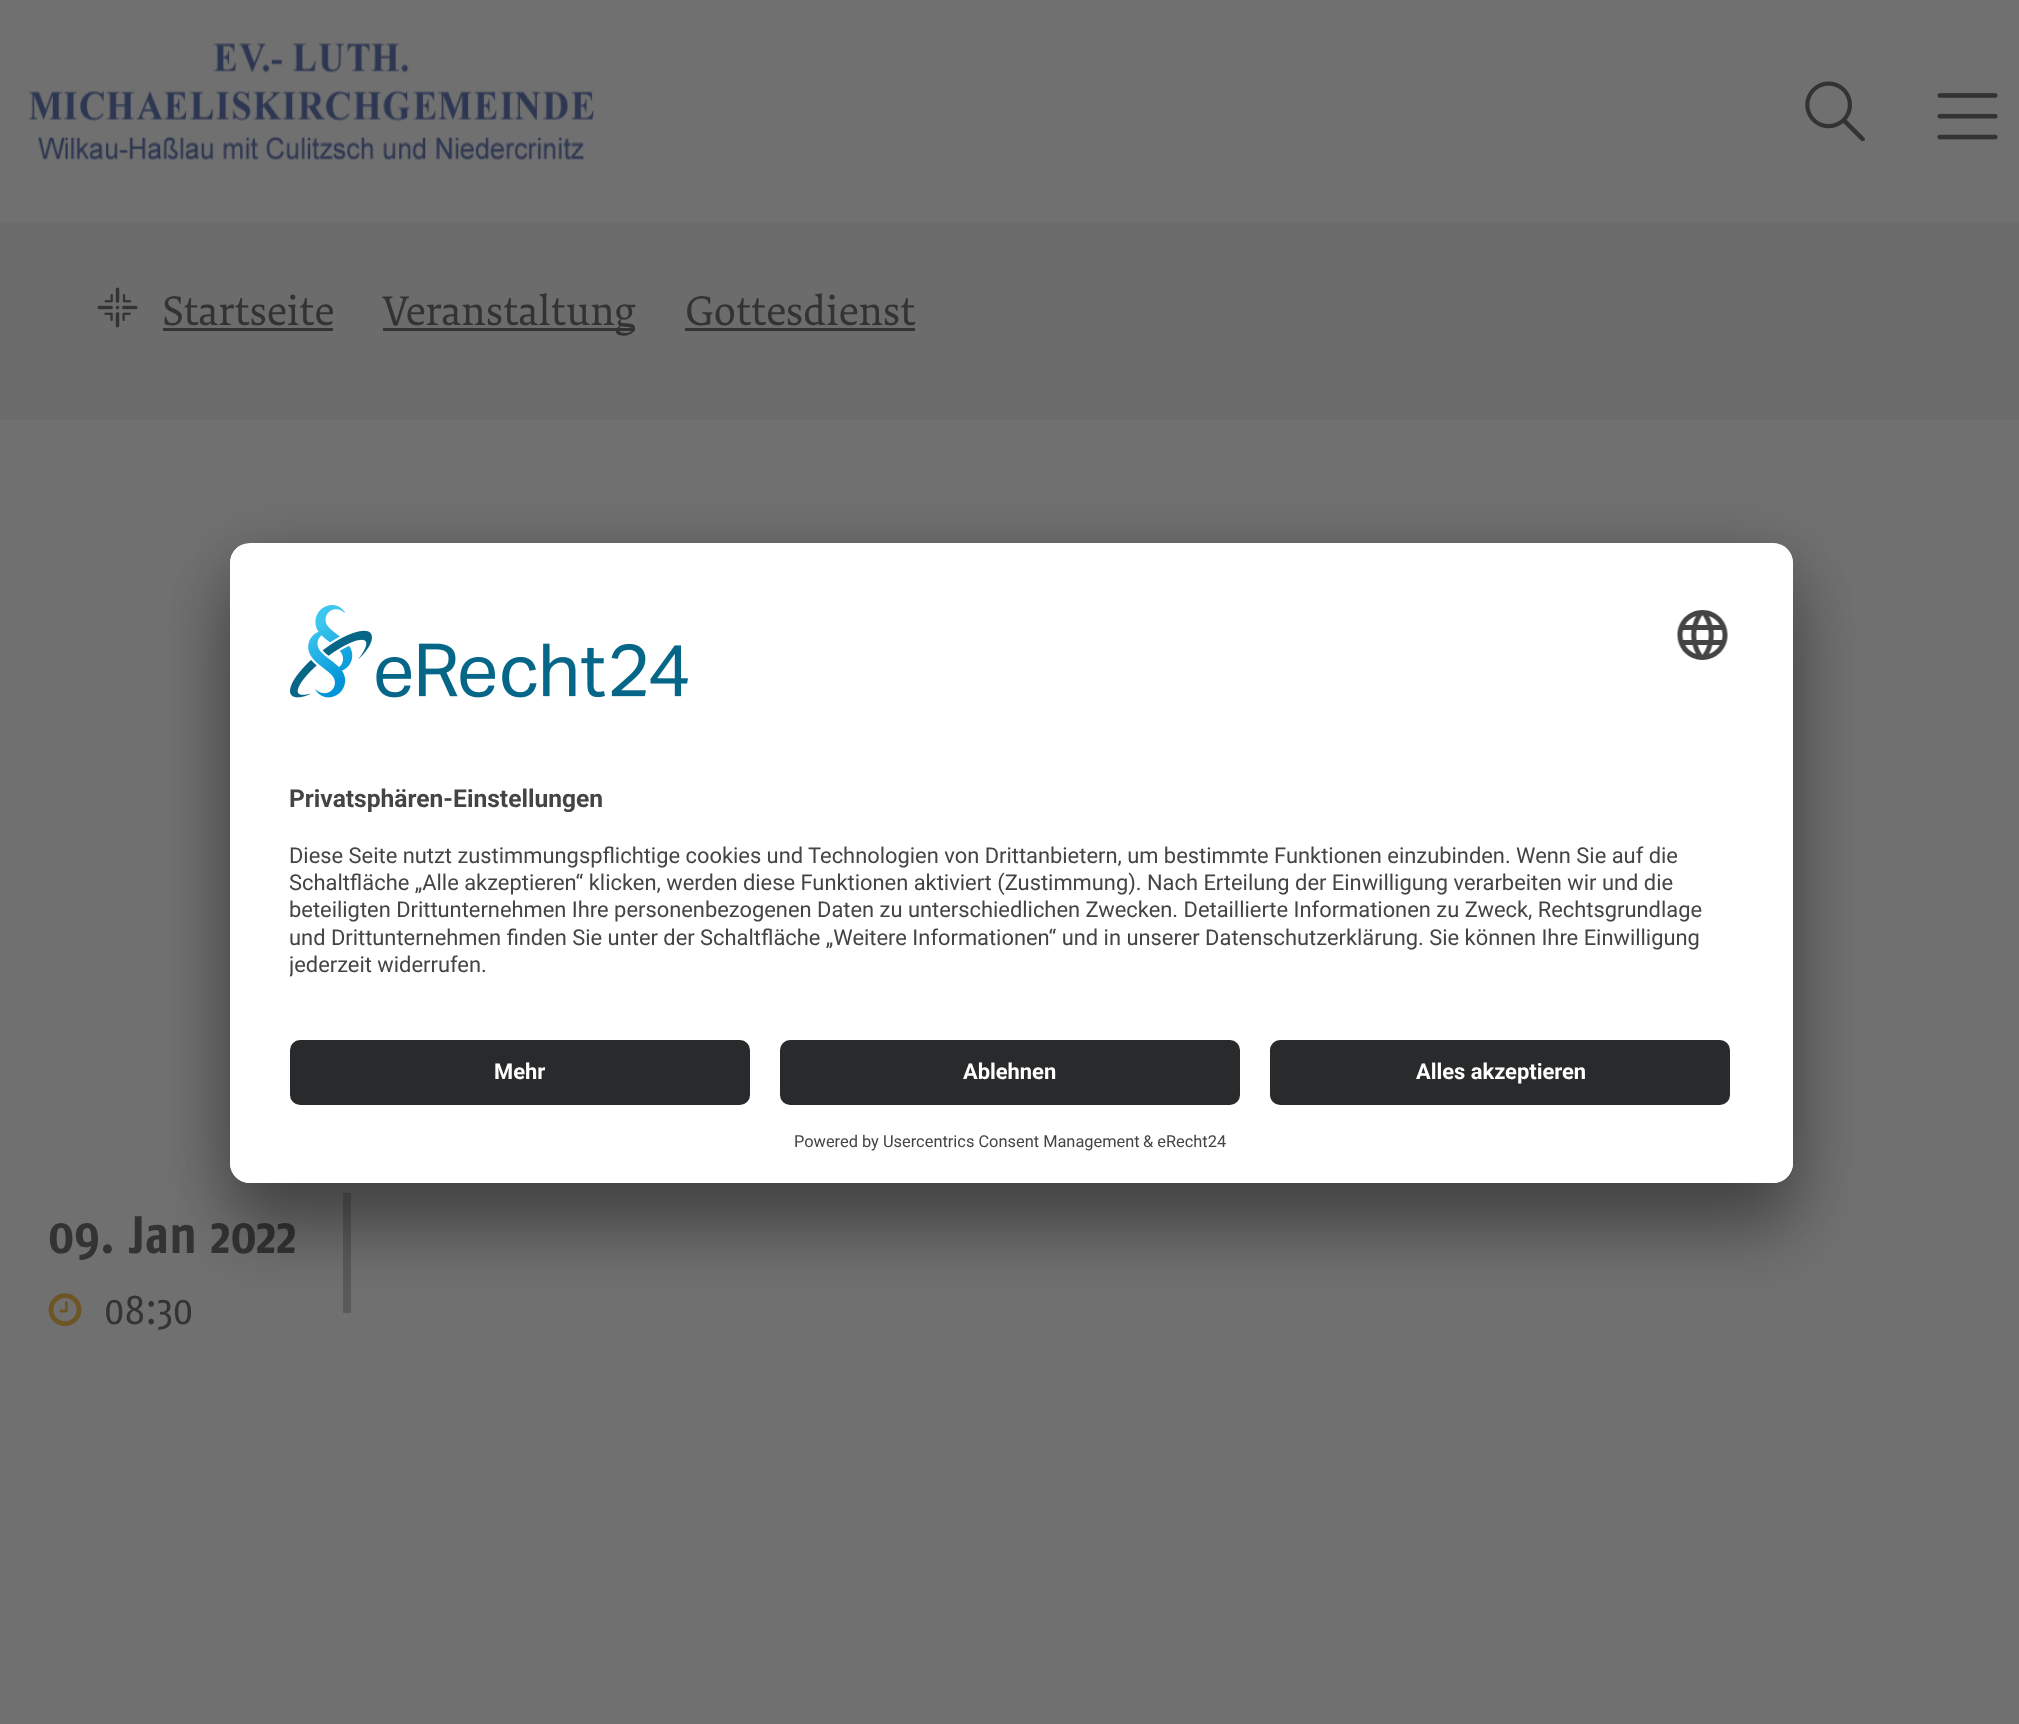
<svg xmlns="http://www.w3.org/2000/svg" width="2019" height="1724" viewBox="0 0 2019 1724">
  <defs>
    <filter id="blur1" x="-50%" y="-200%" width="200%" height="500%"><feGaussianBlur stdDeviation="35"/></filter>
    <filter id="blur2" x="-50%" y="-200%" width="200%" height="500%"><feGaussianBlur stdDeviation="32.5"/></filter>
    <clipPath id="clip1"><rect x="230" y="543" width="1563" height="640" rx="20"/></clipPath>
    <clipPath id="clip2"><path d="M250 543H1773C1784 543 1793 552 1793 563V1020H230V563C230 552 239 543 250 543Z"/></clipPath>
    <clipPath id="clip3"><rect x="290" y="833" width="1443" height="157"/></clipPath>
  </defs>
  <rect width="100%" height="100%" fill="#6c6c6c"/>
  <rect x="0" y="0" width="2019" height="223" fill="#707070"/>
  <image x="28" y="43" width="567" height="118" href="img1.png"/>
  <image x="1805" y="81" width="60" height="60" href="img2.png"/>
  <image x="1937" y="93" width="61" height="47" href="img3.png"/>
  <image x="97" y="287" width="41" height="41" href="img4.png"/>
  <text x="163" y="325" font-family="'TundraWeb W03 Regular'" font-size="42.5" fill="#333333">Startseite</text>
  <rect x="163" y="328" width="170" height="3" fill="#333333"/>
  <rect x="383" y="328" width="252" height="3" fill="#333333"/>
  <text x="383" y="325" font-family="'TundraWeb W03 Regular'" font-size="42.5" fill="#333333">Veranstaltung</text>
  <text x="685" y="325" font-family="'TundraWeb W03 Regular'" font-size="42.5" fill="#333333">Gottesdienst</text>
  <rect x="685" y="328" width="230" height="3" fill="#333333"/>
  <rect x="0" y="420" width="2019" height="1304" fill="#707070"/>
  <text x="48" y="1253" font-family="'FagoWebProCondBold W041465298'" font-size="52.5" font-weight="bold" fill="#333333">09. Jan 2022</text>
  <image x="48" y="1293" width="34" height="34" href="img5.png"/>
  <text x="104" y="1324" font-family="'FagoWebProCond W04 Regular'" font-size="42.5" fill="#333333">08:30</text>
  <rect x="343" y="1193" width="8" height="120" fill="#5a5a5a"/>
  <rect x="230" y="593" width="1563" height="640" rx="20" fill="#000000" fill-opacity="0.3" filter="url(#blur1)"/>
  <rect x="230" y="555" width="1563" height="640" rx="20" fill="#000000" fill-opacity="0.22" filter="url(#blur2)"/>
  <rect x="230" y="543" width="1563" height="640" rx="20" fill="#ffffff"/>
  <g clip-path="url(#clip1)">
    <g clip-path="url(#clip2)">
      <rect x="230" y="545" width="1563" height="475" fill="#ffffff"/>
    </g>
  </g>
  <image x="290" y="605" width="398" height="93" href="img6.png"/>
  <image x="1677" y="610" width="51" height="50" href="img7.png"/>
  <text x="289" y="807" font-family="Roboto" font-size="24.6" font-weight="bold" fill="#444444">Privatsphären-Einstellungen</text>
  <text x="289" y="863" font-family="Roboto" font-size="21.88" fill="#444444">Diese Seite nutzt zustimmungspflichtige cookies und Technologien von Drittanbietern, um bestimmte Funktionen einzubinden. Wenn Sie auf die</text>
  <text x="289" y="890" font-family="Roboto" font-size="21.88" fill="#444444">Schaltfläche „Alle akzeptieren“ klicken, werden diese Funktionen aktiviert (Zustimmung). Nach Erteilung der Einwilligung verarbeiten wir und die</text>
  <text x="289" y="917" font-family="Roboto" font-size="21.88" fill="#444444">beteiligten Drittunternehmen Ihre personenbezogenen Daten zu unterschiedlichen Zwecken. Detaillierte Informationen zu Zweck, Rechtsgrundlage</text>
  <text x="289" y="945" font-family="Roboto" font-size="21.88" fill="#444444">und Drittunternehmen finden Sie unter der Schaltfläche „Weitere Informationen“ und in unserer Datenschutzerklärung. Sie können Ihre Einwilligung</text>
  <g clip-path="url(#clip3)">
    <text x="289" y="972" font-family="Roboto" font-size="21.88" fill="#444444">jederzeit widerrufen.</text>
  </g>
  <path d="M230 1020H1793V1163C1793 1174 1784 1183 1773 1183H250C239 1183 230 1174 230 1163Z" fill="#ffffff"/>
  <rect x="290" y="1040" width="460" height="65" rx="10" fill="#292a2b"/>
  <text x="494" y="1079" font-family="Roboto" font-size="21.88" font-weight="bold" fill="#ffffff">Mehr</text>
  <rect x="780" y="1040" width="460" height="65" rx="10" fill="#292a2b"/>
  <text x="963" y="1079" font-family="Roboto" font-size="21.88" font-weight="bold" fill="#ffffff">Ablehnen</text>
  <rect x="1270" y="1040" width="460" height="65" rx="10" fill="#292a2b"/>
  <text x="1416" y="1079" font-family="Roboto" font-size="21.88" font-weight="bold" fill="#ffffff">Alles akzeptieren</text>
  <text x="794" y="1147" font-family="Roboto" font-size="16.4" fill="#444444">Powered by Usercentrics Consent Management</text>
  <text x="1143" y="1147" font-family="Roboto" font-size="16.4" fill="#444444">&amp; eRecht24</text>
</svg>
